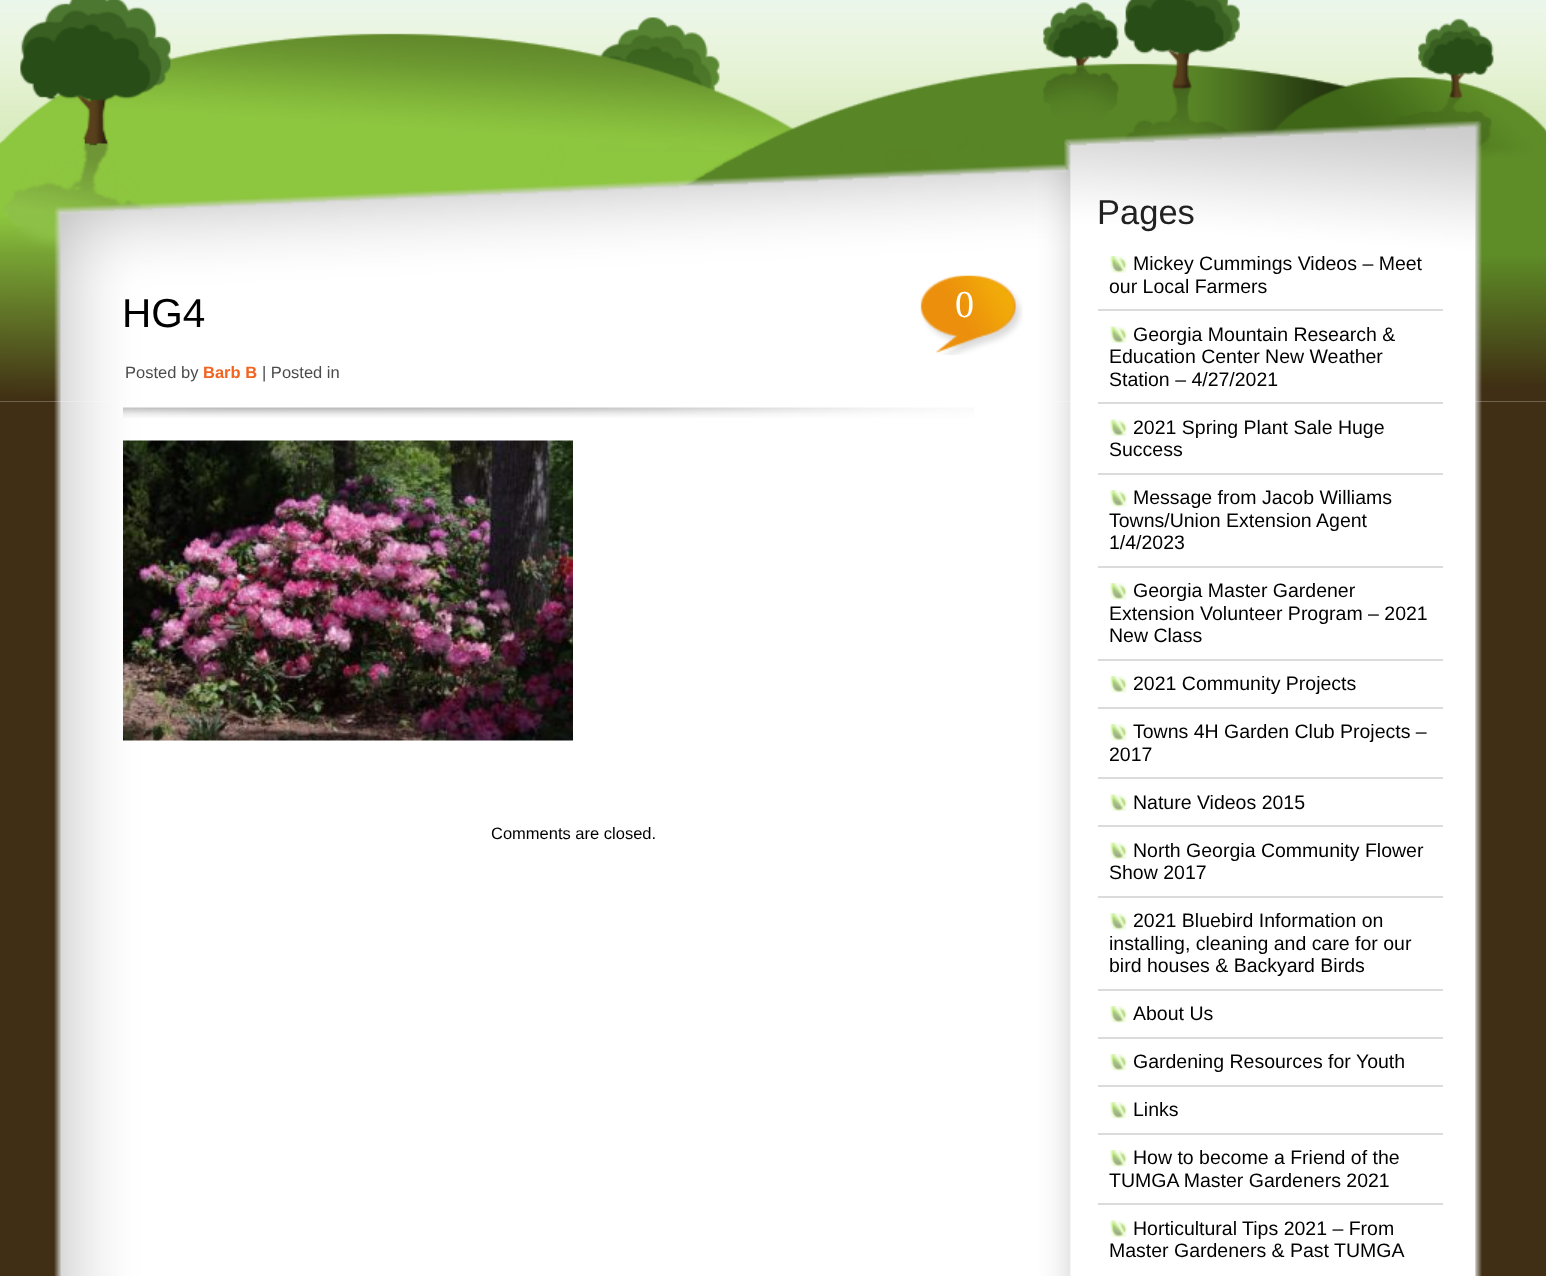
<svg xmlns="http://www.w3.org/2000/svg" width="1546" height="1276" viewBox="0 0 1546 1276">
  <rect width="100%" height="100%" fill="#ffffff"/>
  <image x="0" y="0" width="1546" height="402" href="img1.png"/>
  <image x="0" y="401" width="1546" height="875" href="img2.png"/>
  <image x="123" y="407" width="851" height="11" href="img3.png"/>
  <text x="122" y="327" font-family="Liberation Sans" font-size="40.5" fill="#000000">HG4</text>
  <image x="920" y="275" width="103" height="80" href="img4.png"/>
  <text x="955" y="317" font-family="Liberation Serif" font-size="38" fill="#ffffff">0</text>
  <text x="125" y="378" font-family="Liberation Sans" font-size="16.5" fill="#4b4b4b">Posted by</text>
  <text x="203" y="378" font-family="Liberation Sans" font-size="16.5" font-weight="bold" fill="#f26521">Barb B</text>
  <text x="262" y="378" font-family="Liberation Sans" font-size="16.5" fill="#4b4b4b">| Posted in</text>
  <image x="123" y="440" width="450" height="301" href="img5.png"/>
  <text x="491" y="839" font-family="Liberation Sans" font-size="16.5" fill="#000000">Comments are closed.</text>
  <text x="1097" y="224" font-family="Liberation Sans" font-size="34.5" fill="#212121">Pages</text>
  <rect x="1098" y="309" width="345" height="2" fill="#dbdbdb"/>
  <image x="1110" y="256" width="17" height="17" href="img6.png"/>
  <text x="1133" y="270" font-family="Liberation Sans" font-size="19.5" fill="#000000">Mickey Cummings Videos – Meet</text>
  <text x="1109" y="293" font-family="Liberation Sans" font-size="19.5" fill="#000000">our Local Farmers</text>
  <rect x="1098" y="402" width="345" height="2" fill="#dbdbdb"/>
  <image x="1110" y="326" width="17" height="17" href="img7.png"/>
  <text x="1133" y="341" font-family="Liberation Sans" font-size="19.5" fill="#000000">Georgia Mountain Research &amp;</text>
  <text x="1109" y="363" font-family="Liberation Sans" font-size="19.5" fill="#000000">Education Center New Weather</text>
  <text x="1109" y="386" font-family="Liberation Sans" font-size="19.5" fill="#000000">Station – 4/27/2021</text>
  <rect x="1098" y="473" width="345" height="2" fill="#dbdbdb"/>
  <image x="1110" y="419" width="17" height="17" href="img7.png"/>
  <text x="1133" y="434" font-family="Liberation Sans" font-size="19.5" fill="#000000">2021 Spring Plant Sale Huge</text>
  <text x="1109" y="456" font-family="Liberation Sans" font-size="19.5" fill="#000000">Success</text>
  <rect x="1098" y="566" width="345" height="2" fill="#dbdbdb"/>
  <image x="1110" y="490" width="17" height="17" href="img6.png"/>
  <text x="1133" y="504" font-family="Liberation Sans" font-size="19.5" fill="#000000">Message from Jacob Williams</text>
  <text x="1109" y="527" font-family="Liberation Sans" font-size="19.5" fill="#000000">Towns/Union Extension Agent</text>
  <text x="1109" y="549" font-family="Liberation Sans" font-size="19.5" fill="#000000">1/4/2023</text>
  <rect x="1098" y="659" width="345" height="2" fill="#dbdbdb"/>
  <image x="1110" y="583" width="17" height="17" href="img6.png"/>
  <text x="1133" y="597" font-family="Liberation Sans" font-size="19.5" fill="#000000">Georgia Master Gardener</text>
  <text x="1109" y="620" font-family="Liberation Sans" font-size="19.5" fill="#000000">Extension Volunteer Program – 2021</text>
  <text x="1109" y="642" font-family="Liberation Sans" font-size="19.5" fill="#000000">New Class</text>
  <rect x="1098" y="707" width="345" height="2" fill="#dbdbdb"/>
  <image x="1110" y="676" width="17" height="17" href="img6.png"/>
  <text x="1133" y="690" font-family="Liberation Sans" font-size="19.5" fill="#000000">2021 Community Projects</text>
  <rect x="1098" y="777" width="345" height="2" fill="#dbdbdb"/>
  <image x="1110" y="724" width="17" height="17" href="img6.png"/>
  <text x="1133" y="738" font-family="Liberation Sans" font-size="19.5" fill="#000000">Towns 4H Garden Club Projects –</text>
  <text x="1109" y="761" font-family="Liberation Sans" font-size="19.5" fill="#000000">2017</text>
  <rect x="1098" y="825" width="345" height="2" fill="#dbdbdb"/>
  <image x="1110" y="794" width="17" height="17" href="img7.png"/>
  <text x="1133" y="809" font-family="Liberation Sans" font-size="19.5" fill="#000000">Nature Videos 2015</text>
  <rect x="1098" y="896" width="345" height="2" fill="#dbdbdb"/>
  <image x="1110" y="842" width="17" height="17" href="img7.png"/>
  <text x="1133" y="857" font-family="Liberation Sans" font-size="19.5" fill="#000000">North Georgia Community Flower</text>
  <text x="1109" y="879" font-family="Liberation Sans" font-size="19.5" fill="#000000">Show 2017</text>
  <rect x="1098" y="989" width="345" height="2" fill="#dbdbdb"/>
  <image x="1110" y="913" width="17" height="17" href="img6.png"/>
  <text x="1133" y="927" font-family="Liberation Sans" font-size="19.5" fill="#000000">2021 Bluebird Information on</text>
  <text x="1109" y="950" font-family="Liberation Sans" font-size="19.5" fill="#000000">installing, cleaning and care for our</text>
  <text x="1109" y="972" font-family="Liberation Sans" font-size="19.5" fill="#000000">bird houses &amp; Backyard Birds</text>
  <rect x="1098" y="1037" width="345" height="2" fill="#dbdbdb"/>
  <image x="1110" y="1006" width="17" height="17" href="img6.png"/>
  <text x="1133" y="1020" font-family="Liberation Sans" font-size="19.5" fill="#000000">About Us</text>
  <rect x="1098" y="1085" width="345" height="2" fill="#dbdbdb"/>
  <image x="1110" y="1054" width="17" height="17" href="img6.png"/>
  <text x="1133" y="1068" font-family="Liberation Sans" font-size="19.5" fill="#000000">Gardening Resources for Youth</text>
  <rect x="1098" y="1133" width="345" height="2" fill="#dbdbdb"/>
  <image x="1110" y="1102" width="17" height="17" href="img6.png"/>
  <text x="1133" y="1116" font-family="Liberation Sans" font-size="19.5" fill="#000000">Links</text>
  <rect x="1098" y="1203" width="345" height="2" fill="#dbdbdb"/>
  <image x="1110" y="1150" width="17" height="17" href="img6.png"/>
  <text x="1133" y="1164" font-family="Liberation Sans" font-size="19.5" fill="#000000">How to become a Friend of the</text>
  <text x="1109" y="1187" font-family="Liberation Sans" font-size="19.5" fill="#000000">TUMGA Master Gardeners 2021</text>
  <image x="1110" y="1220" width="17" height="17" href="img7.png"/>
  <text x="1133" y="1235" font-family="Liberation Sans" font-size="19.5" fill="#000000">Horticultural Tips 2021 – From</text>
  <text x="1109" y="1257" font-family="Liberation Sans" font-size="19.5" fill="#000000">Master Gardeners &amp; Past TUMGA</text>
</svg>
